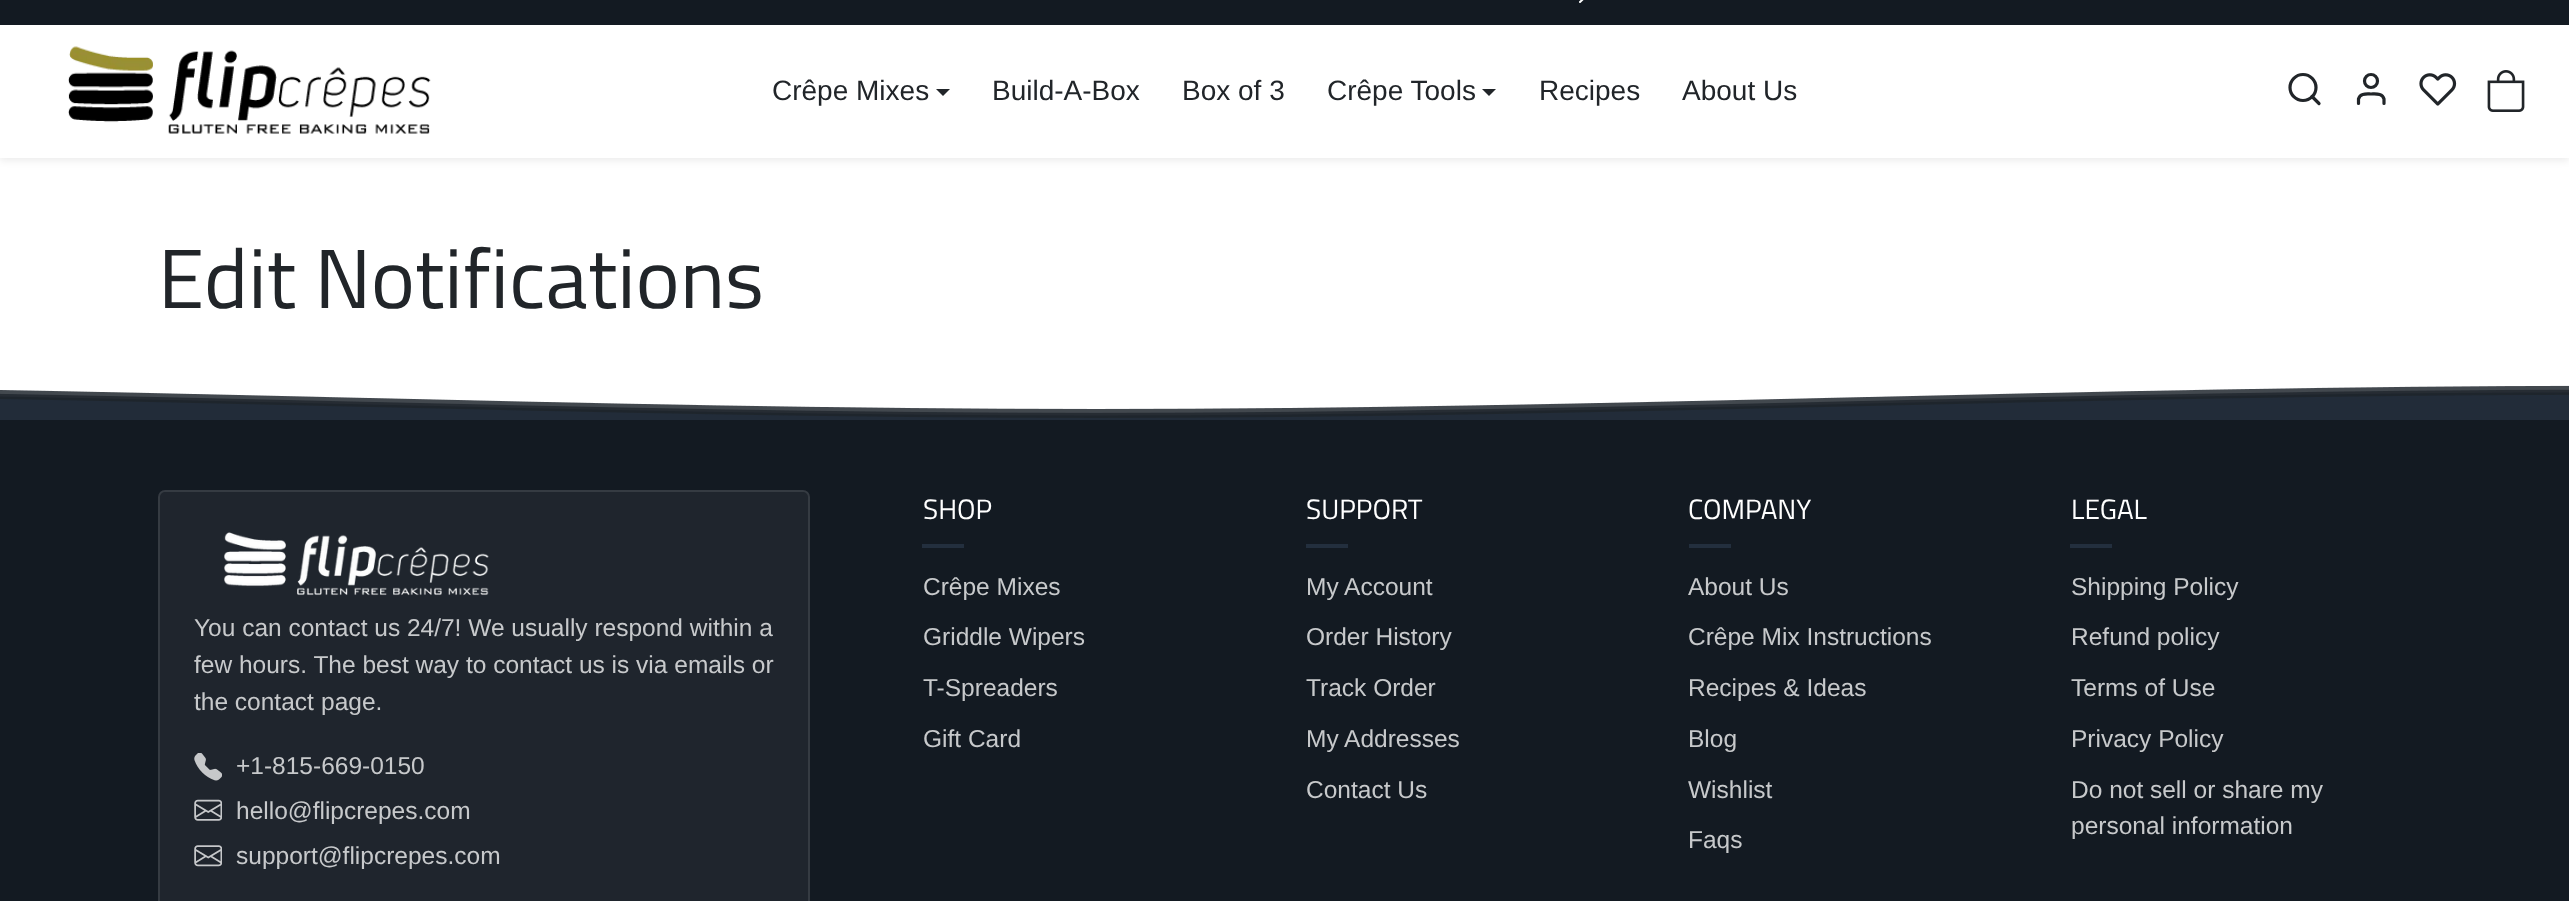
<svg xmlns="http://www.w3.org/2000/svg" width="2569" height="901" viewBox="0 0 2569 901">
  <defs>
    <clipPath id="clip1"><path d="M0 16H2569V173H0ZM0 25H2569V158H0Z" clip-rule="evenodd"/></clipPath>
    <filter id="blur1" x="-50%" y="-200%" width="200%" height="500%"><feGaussianBlur stdDeviation="3.5"/></filter>
  </defs>
  <rect width="100%" height="100%" fill="#ffffff"/>
  <rect x="0" y="0" width="2569" height="25" fill="#131a22"/>
  <path d="M1571-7H1588M1580-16L1589.5-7L1580 2" fill="none" stroke="#ffffff" stroke-width="2" stroke-linecap="round" stroke-linejoin="round"/>
  <g clip-path="url(#clip1)">
    <rect x="0" y="28" width="2569" height="133" fill="#131a22" fill-opacity="0.07" filter="url(#blur1)"/>
  </g>
  <rect x="0" y="157" width="2569" height="1" fill="#ffffff" fill-opacity="0.75"/>
  <image x="68" y="46" width="363" height="88" href="img1.png"/>
  <text x="772" y="100" font-family="Arimo" font-size="28" fill="#212529">Crêpe Mixes</text>
  <path d="M936 89H950L943 96Z" fill="#212529"/>
  <text x="992" y="100" font-family="Arimo" font-size="28" fill="#212529">Build-A-Box</text>
  <text x="1182" y="100" font-family="Arimo" font-size="28" fill="#212529">Box of 3</text>
  <text x="1327" y="100" font-family="Arimo" font-size="28" fill="#212529">Crêpe Tools</text>
  <path d="M1482 89H1496L1489 96Z" fill="#212529"/>
  <text x="1539" y="100" font-family="Arimo" font-size="28" fill="#212529">Recipes</text>
  <text x="1682" y="100" font-family="Arimo" font-size="28" fill="#212529">About Us</text>
  <circle cx="2303" cy="87.5" r="13" fill="none" stroke="#212529" stroke-width="3.2"/>
  <path d="M2319 103.5L2312 96.5" fill="none" stroke="#212529" stroke-width="3.2" stroke-linecap="round" stroke-linejoin="round"/>
  <path d="M2384 103.5V99C2382.5 93 2376 94 2371 94C2366.5 94 2360 93 2358.5 99V103.5" fill="none" stroke="#212529" stroke-width="3.2" stroke-linecap="round" stroke-linejoin="round"/>
  <circle cx="2371" cy="81" r="6.5" fill="none" stroke="#212529" stroke-width="3.2"/>
  <image x="2419" y="73" width="38" height="33" href="img2.png"/>
  <image x="2487" y="70" width="38" height="42" href="img3.png"/>
  <text x="158" y="308" font-family="Titillium Web" font-size="84" fill="#212529">Edit Notifications</text>
  <image x="0" y="385" width="2569" height="35" href="img4.png"/>
  <rect x="0" y="420" width="2569" height="481" fill="#131a22"/>
  <rect x="158" y="490" width="652" height="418" rx="7" fill="#1f252d"/>
  <rect x="159" y="491" width="650" height="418" rx="6" fill="none" stroke="#ffffff" stroke-opacity="0.1" stroke-width="2"/>
  <image x="223" y="532" width="266" height="64" href="img5.png"/>
  <text x="194" y="636" font-family="Arimo" font-size="24.5" fill="#c7c9cb">You can contact us 24/7! We usually respond within a</text>
  <text x="194" y="673" font-family="Arimo" font-size="24.5" fill="#c7c9cb">few hours. The best way to contact us is via emails or</text>
  <text x="194" y="710" font-family="Arimo" font-size="24.5" fill="#c7c9cb">the contact</text>
  <text x="321" y="710" font-family="Arimo" font-size="24.5" fill="#c7c9cb">page.</text>
  <image x="194" y="753" width="28" height="28" href="img6.png"/>
  <text x="236" y="774" font-family="Arimo" font-size="24.5" fill="#c7c9cb">+1-815-669-0150</text>
  <image x="194" y="799" width="28" height="22" href="img7.png"/>
  <text x="236" y="819" font-family="Arimo" font-size="24.5" fill="#c7c9cb">hello@flipcrepes.com</text>
  <image x="194" y="845" width="28" height="22" href="img8.png"/>
  <text x="236" y="864" font-family="Arimo" font-size="24.5" fill="#c7c9cb">support@flipcrepes.com</text>
  <text x="923" y="519" font-family="Titillium Web" font-size="28" fill="#ffffff">SHOP</text>
  <rect x="922" y="544" width="42" height="4" fill="#232f3e"/>
  <text x="923" y="595" font-family="Arimo" font-size="24.5" fill="#c7c9cb">Crêpe Mixes</text>
  <text x="923" y="645" font-family="Arimo" font-size="24.5" fill="#c7c9cb">Griddle Wipers</text>
  <text x="923" y="696" font-family="Arimo" font-size="24.5" fill="#c7c9cb">T-Spreaders</text>
  <text x="923" y="747" font-family="Arimo" font-size="24.5" fill="#c7c9cb">Gift Card</text>
  <text x="1306" y="519" font-family="Titillium Web" font-size="28" fill="#ffffff">SUPPORT</text>
  <rect x="1306" y="544" width="42" height="4" fill="#232f3e"/>
  <text x="1306" y="595" font-family="Arimo" font-size="24.5" fill="#c7c9cb">My Account</text>
  <text x="1306" y="645" font-family="Arimo" font-size="24.5" fill="#c7c9cb">Order History</text>
  <text x="1306" y="696" font-family="Arimo" font-size="24.5" fill="#c7c9cb">Track Order</text>
  <text x="1306" y="747" font-family="Arimo" font-size="24.5" fill="#c7c9cb">My Addresses</text>
  <text x="1306" y="798" font-family="Arimo" font-size="24.5" fill="#c7c9cb">Contact Us</text>
  <text x="1688" y="519" font-family="Titillium Web" font-size="28" fill="#ffffff">COMPANY</text>
  <rect x="1689" y="544" width="42" height="4" fill="#232f3e"/>
  <text x="1688" y="595" font-family="Arimo" font-size="24.5" fill="#c7c9cb">About Us</text>
  <text x="1688" y="645" font-family="Arimo" font-size="24.5" fill="#c7c9cb">Crêpe Mix Instructions</text>
  <text x="1688" y="696" font-family="Arimo" font-size="24.5" fill="#c7c9cb">Recipes &amp; Ideas</text>
  <text x="1688" y="747" font-family="Arimo" font-size="24.5" fill="#c7c9cb">Blog</text>
  <text x="1688" y="798" font-family="Arimo" font-size="24.5" fill="#c7c9cb">Wishlist</text>
  <text x="1688" y="848" font-family="Arimo" font-size="24.5" fill="#c7c9cb">Faqs</text>
  <text x="2071" y="519" font-family="Titillium Web" font-size="28" fill="#ffffff">LEGAL</text>
  <rect x="2070" y="544" width="42" height="4" fill="#232f3e"/>
  <text x="2071" y="595" font-family="Arimo" font-size="24.5" fill="#c7c9cb">Shipping Policy</text>
  <text x="2071" y="645" font-family="Arimo" font-size="24.5" fill="#c7c9cb">Refund policy</text>
  <text x="2071" y="696" font-family="Arimo" font-size="24.5" fill="#c7c9cb">Terms of Use</text>
  <text x="2071" y="747" font-family="Arimo" font-size="24.5" fill="#c7c9cb">Privacy Policy</text>
  <text x="2071" y="798" font-family="Arimo" font-size="24.5" fill="#c7c9cb">Do not sell or share my</text>
  <text x="2071" y="834" font-family="Arimo" font-size="24.5" fill="#c7c9cb">personal information</text>
</svg>
